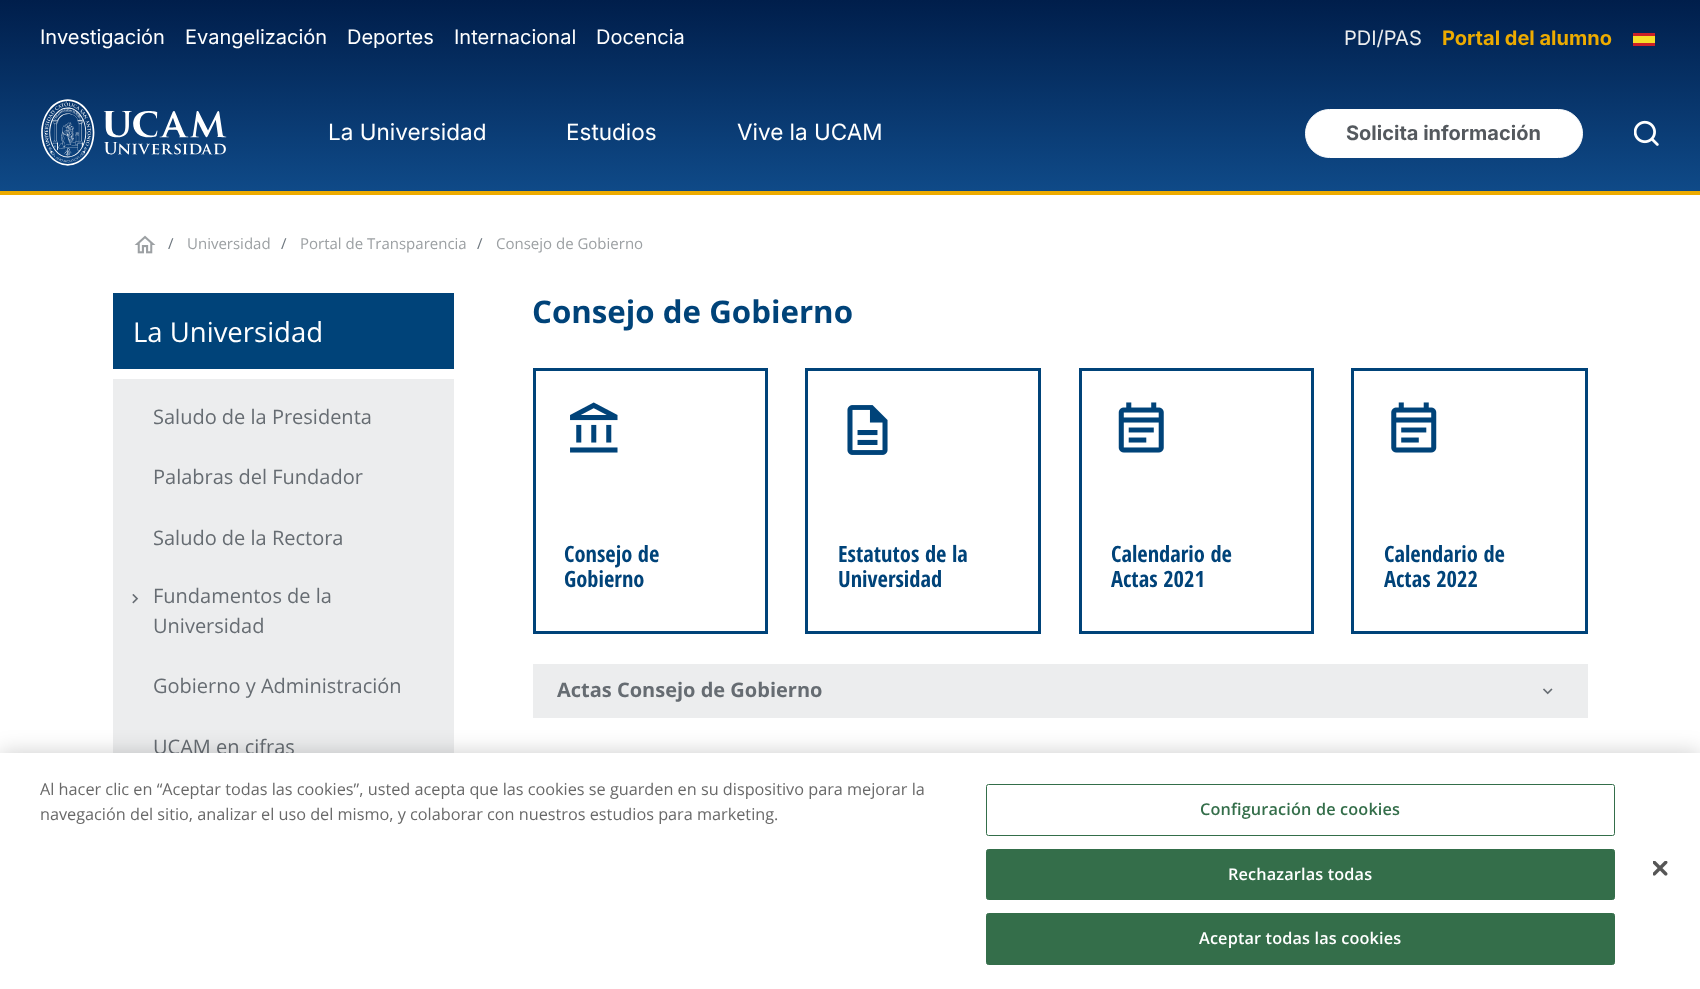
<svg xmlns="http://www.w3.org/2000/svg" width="1700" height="989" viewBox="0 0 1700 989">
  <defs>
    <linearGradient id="g1" gradientUnits="userSpaceOnUse" x1="850" y1="191" x2="850" y2="0"><stop offset="0" stop-color="#0f4a88"/><stop offset="1" stop-color="#001e4b"/></linearGradient>
    <filter id="blur1" x="-50%" y="-200%" width="200%" height="500%"><feGaussianBlur stdDeviation="11"/></filter>
  </defs>
  <rect width="100%" height="100%" fill="#ffffff"/>
  <rect x="0" y="0" width="1700" height="191" fill="url(#g1)"/>
  <rect x="0" y="191" width="1700" height="4" fill="#edab00"/>
  <text x="40" y="44" font-family="Inter" font-size="20" fill="#ffffff">Investigación</text>
  <text x="185" y="44" font-family="Inter" font-size="20" fill="#ffffff">Evangelización</text>
  <text x="347" y="44" font-family="Inter" font-size="20" fill="#ffffff">Deportes</text>
  <text x="454" y="44" font-family="Inter" font-size="20" fill="#ffffff">Internacional</text>
  <text x="596" y="44" font-family="Inter" font-size="20" fill="#ffffff">Docencia</text>
  <text x="1344" y="45" font-family="Inter" font-size="20" fill="#ecedee">PDI/PAS</text>
  <text x="1442" y="45" font-family="Inter" font-size="20" font-weight="bold" fill="#edab00">Portal del alumno</text>
  <rect x="1633" y="33" width="22" height="3" fill="#cc2027"/>
  <rect x="1633" y="36" width="22" height="7" fill="#f7de29"/>
  <rect x="1633" y="43" width="22" height="3" fill="#cc2027"/>
  <image x="41" y="99" width="186" height="67" href="img1.png"/>
  <text x="328" y="140" font-family="Inter" font-size="22.5" fill="#ffffff">La Universidad</text>
  <text x="566" y="140" font-family="Inter" font-size="22.5" fill="#ffffff">Estudios</text>
  <text x="737" y="140" font-family="Inter" font-size="22.5" fill="#ffffff">Vive la UCAM</text>
  <rect x="1305.5" y="109.5" width="277" height="48" rx="24" fill="#ffffff" stroke="#ffffff"/>
  <text x="1346" y="140" font-family="Inter" font-size="20" font-weight="bold" fill="#54595e">Solicita información</text>
  <image x="1634" y="120" width="25" height="26" href="img2.png"/>
  <image x="134" y="235" width="22" height="19" href="img3.png"/>
  <text x="168" y="249" font-family="Open Sans" font-size="15" fill="#6c757d">/</text>
  <text x="187" y="249" font-family="Open Sans" font-size="15" fill="#9ca0a3">Universidad</text>
  <text x="281" y="249" font-family="Open Sans" font-size="15" fill="#6c757d">/</text>
  <text x="300" y="249" font-family="Open Sans" font-size="15" fill="#9ca0a3">Portal de Transparencia</text>
  <text x="477" y="249" font-family="Open Sans" font-size="15" fill="#6c757d">/</text>
  <text x="496" y="249" font-family="Open Sans" font-size="15" fill="#9ca0a3">Consejo de Gobierno</text>
  <rect x="113" y="293" width="341" height="76" fill="#004379"/>
  <text x="133" y="342" font-family="Open Sans" font-size="27.5" fill="#ffffff">La Universidad</text>
  <rect x="113" y="379" width="341" height="374" fill="#ecedee"/>
  <text x="153" y="424" font-family="Open Sans" font-size="20" fill="#666c72">Saludo de la Presidenta</text>
  <text x="153" y="484" font-family="Open Sans" font-size="20" fill="#666c72">Palabras del Fundador</text>
  <text x="153" y="545" font-family="Open Sans" font-size="20" fill="#666c72">Saludo de la Rectora</text>
  <image x="132" y="594" width="7" height="10" href="img4.png"/>
  <text x="153" y="603" font-family="Open Sans" font-size="20" fill="#666c72">Fundamentos de la</text>
  <text x="153" y="633" font-family="Open Sans" font-size="20" fill="#666c72">Universidad</text>
  <text x="153" y="693" font-family="Open Sans" font-size="20" fill="#666c72">Gobierno y Administración</text>
  <text x="153" y="754" font-family="Open Sans" font-size="20" fill="#666c72">UCAM en cifras</text>
  <text x="532" y="323" font-family="Open Sans" font-size="31.25" font-weight="bold" fill="#004379">Consejo de Gobierno</text>
  <rect x="534.5" y="369.5" width="232" height="263" fill="none" stroke="#004379" stroke-width="3"/>
  <image x="570" y="402" width="48" height="51" href="img5.png"/>
  <text x="564" y="562" font-family="Open Sans Condensed" font-size="22.5" font-weight="bold" fill="#004379">Consejo de</text>
  <text x="564" y="587" font-family="Open Sans Condensed" font-size="22.5" font-weight="bold" fill="#004379">Gobierno</text>
  <rect x="806.5" y="369.5" width="233" height="263" fill="none" stroke="#004379" stroke-width="3"/>
  <image x="847" y="405" width="41" height="50" href="img6.png"/>
  <text x="838" y="562" font-family="Open Sans Condensed" font-size="22.5" font-weight="bold" fill="#004379">Estatutos de la</text>
  <text x="838" y="587" font-family="Open Sans Condensed" font-size="22.5" font-weight="bold" fill="#004379">Universidad</text>
  <rect x="1080.5" y="369.5" width="232" height="263" fill="none" stroke="#004379" stroke-width="3"/>
  <image x="1118" y="402" width="46" height="51" href="img7.png"/>
  <text x="1111" y="562" font-family="Open Sans Condensed" font-size="22.5" font-weight="bold" fill="#004379">Calendario de</text>
  <text x="1111" y="587" font-family="Open Sans Condensed" font-size="22.5" font-weight="bold" fill="#004379">Actas 2021</text>
  <rect x="1352.5" y="369.5" width="234" height="263" fill="none" stroke="#004379" stroke-width="3"/>
  <image x="1391" y="402" width="46" height="51" href="img8.png"/>
  <text x="1384" y="562" font-family="Open Sans Condensed" font-size="22.5" font-weight="bold" fill="#004379">Calendario de</text>
  <text x="1384" y="587" font-family="Open Sans Condensed" font-size="22.5" font-weight="bold" fill="#004379">Actas 2022</text>
  <rect x="533" y="664" width="1055" height="54" fill="#ecedee"/>
  <text x="557" y="697" font-family="Open Sans" font-size="20" font-weight="bold" fill="#666c72">Actas Consejo de Gobierno</text>
  <image x="1543" y="688" width="10" height="7" href="img9.png"/>
  <rect x="0" y="753" width="1700" height="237" fill="#000000" fill-opacity="0.2" filter="url(#blur1)"/>
  <rect x="0" y="753" width="1700" height="236" fill="#ffffff"/>
  <text x="40" y="795" font-family="Open Sans" font-size="16.25" fill="#696969">Al hacer clic en “Aceptar todas las cookies”, usted acepta que las cookies se guarden en su dispositivo para mejorar la</text>
  <text x="40" y="820" font-family="Open Sans" font-size="16.25" fill="#696969">navegación del sitio, analizar el uso del mismo, y colaborar con nuestros estudios para marketing.</text>
  <rect x="986.5" y="784.5" width="628" height="51" rx="2" fill="none" stroke="#346e4a"/>
  <text x="1200" y="815" font-family="Open Sans" font-size="16.25" font-weight="600" letter-spacing="0.15" fill="#346e4a">Configuración de cookies</text>
  <rect x="986.5" y="849.5" width="628" height="50" rx="2" fill="#346e4a" stroke="#346e4a"/>
  <text x="1228" y="880" font-family="Open Sans" font-size="16.25" font-weight="600" letter-spacing="0.15" fill="#ffffff">Rechazarlas todas</text>
  <rect x="986.5" y="913.5" width="628" height="51" rx="2" fill="#346e4a" stroke="#346e4a"/>
  <text x="1199" y="944" font-family="Open Sans" font-size="16.25" font-weight="600" letter-spacing="0.15" fill="#ffffff">Aceptar todas las cookies</text>
  <image x="1653" y="861" width="15" height="15" href="img10.png"/>
</svg>
